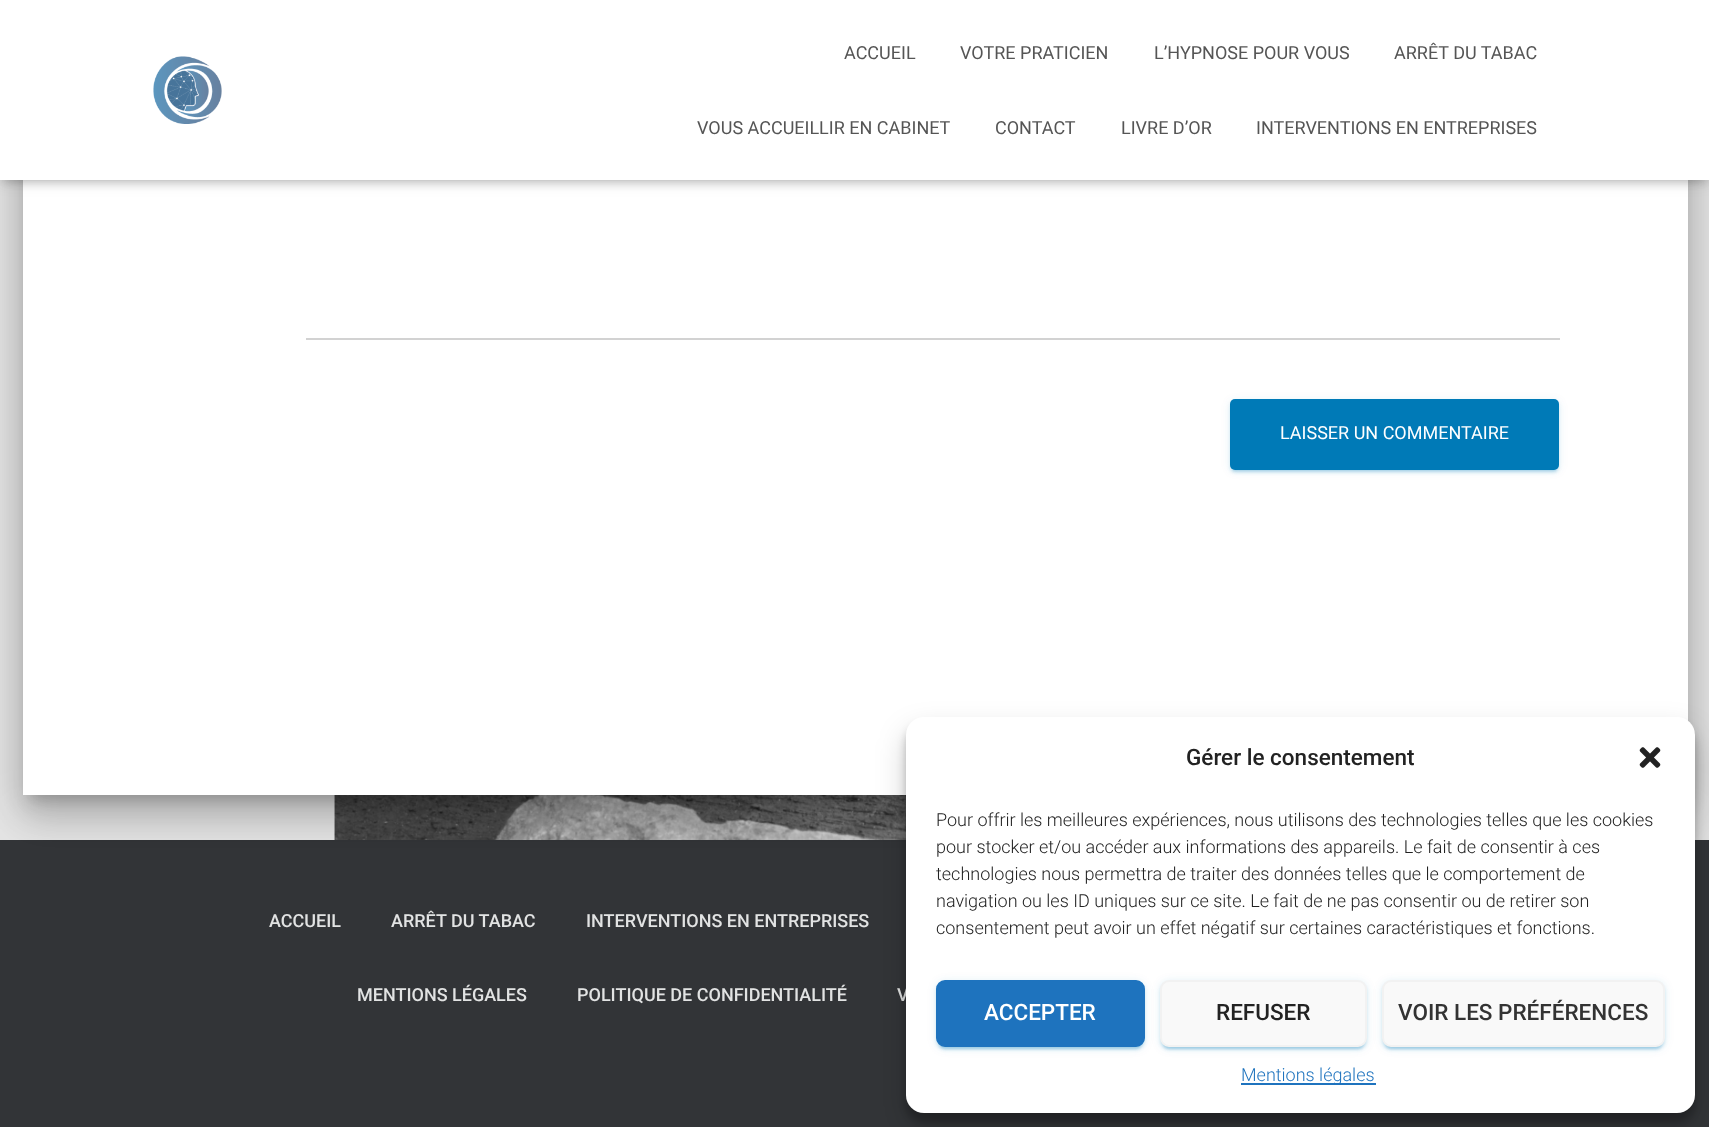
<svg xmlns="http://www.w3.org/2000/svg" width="1709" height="1127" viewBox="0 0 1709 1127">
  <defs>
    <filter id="blur1" x="-50%" y="-200%" width="200%" height="500%"><feGaussianBlur stdDeviation="7.5"/></filter>
    <filter id="blur2" x="-50%" y="-200%" width="200%" height="500%"><feGaussianBlur stdDeviation="22.5"/></filter>
    <filter id="blur3" x="-50%" y="-200%" width="200%" height="500%"><feGaussianBlur stdDeviation="18"/></filter>
    <filter id="blur4" x="-50%" y="-200%" width="200%" height="500%"><feGaussianBlur stdDeviation="4"/></filter>
    <filter id="blur5" x="-50%" y="-200%" width="200%" height="500%"><feGaussianBlur stdDeviation="1"/></filter>
    <filter id="blur6" x="-50%" y="-200%" width="200%" height="500%"><feGaussianBlur stdDeviation="1.5"/></filter>
    <filter id="blur7" x="-50%" y="-200%" width="200%" height="500%"><feGaussianBlur stdDeviation="4.5"/></filter>
    <filter id="blur8" x="-50%" y="-200%" width="200%" height="500%"><feGaussianBlur stdDeviation="15"/></filter>
  </defs>
  <rect width="100%" height="100%" fill="#e5e5e5"/>
  <image x="334" y="795" width="572" height="45" href="img1.png"/>
  <rect x="30" y="-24" width="1650" height="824" rx="1.5" fill="#000000" fill-opacity="0.2" filter="url(#blur1)"/>
  <rect x="0" y="840" width="1709" height="287" fill="#323437"/>
  <rect x="15" y="-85" width="1680" height="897" rx="17" fill="#000000" fill-opacity="0.12" filter="url(#blur2)"/>
  <rect x="20" y="-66" width="1671" height="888" rx="12" fill="#000000" fill-opacity="0.14" filter="url(#blur3)"/>
  <rect x="23" y="180" width="1665" height="615" fill="#ffffff"/>
  <rect x="3" y="9" width="1704" height="174" fill="#000000" fill-opacity="0.1" filter="url(#blur4)"/>
  <rect x="0" y="2" width="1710" height="180" fill="#000000" fill-opacity="0.12" filter="url(#blur1)"/>
  <rect x="9" y="11" width="1692" height="162" fill="#000000" fill-opacity="0.42" filter="url(#blur1)"/>
  <rect x="0" y="0" width="1709" height="180" fill="#ffffff"/>
  <image x="153" y="56" width="69" height="68" href="img2.png"/>
  <text x="844" y="59" font-family="Roboto" font-size="18" fill="#555555">ACCUEIL</text>
  <text x="960" y="59" font-family="Roboto" font-size="18" fill="#555555">VOTRE PRATICIEN</text>
  <text x="1154" y="59" font-family="Roboto" font-size="18" fill="#555555">L’HYPNOSE POUR VOUS</text>
  <text x="1394" y="59" font-family="Roboto" font-size="18" fill="#555555">ARRÊT DU TABAC</text>
  <text x="697" y="134" font-family="Roboto" font-size="18" fill="#555555">VOUS ACCUEILLIR EN CABINET</text>
  <text x="995" y="134" font-family="Roboto" font-size="18" fill="#555555">CONTACT</text>
  <text x="1121" y="134" font-family="Roboto" font-size="18" fill="#555555">LIVRE D’OR</text>
  <text x="1256" y="134" font-family="Roboto" font-size="18" fill="#555555">INTERVENTIONS EN ENTREPRISES</text>
  <rect x="306" y="338" width="1254" height="2" fill="#d2d2d2"/>
  <rect x="1230" y="401" width="329" height="70" rx="5" fill="#007ab7" fill-opacity="0.12" filter="url(#blur4)"/>
  <rect x="1233" y="407" width="323" height="64" rx="1.5" fill="#007ab7" fill-opacity="0.2" filter="url(#blur5)"/>
  <rect x="1230" y="402" width="329" height="71" rx="5" fill="#007ab7" fill-opacity="0.14" filter="url(#blur6)"/>
  <rect x="1230" y="399" width="329" height="71" rx="5" fill="#007ab7"/>
  <text x="1280" y="439" font-family="Roboto" font-size="18" fill="#ffffff">LAISSER UN COMMENTAIRE</text>
  <text x="269" y="927" font-family="Roboto" font-size="18" font-weight="500" fill="#e2e3e3">ACCUEIL</text>
  <text x="391" y="927" font-family="Roboto" font-size="18" font-weight="500" fill="#e2e3e3">ARRÊT DU TABAC</text>
  <text x="586" y="927" font-family="Roboto" font-size="18" font-weight="500" fill="#e2e3e3">INTERVENTIONS EN ENTREPRISES</text>
  <text x="357" y="1001" font-family="Roboto" font-size="18" font-weight="500" fill="#e2e3e3">MENTIONS LÉGALES</text>
  <text x="577" y="1001" font-family="Roboto" font-size="18" font-weight="500" fill="#e2e3e3">POLITIQUE DE CONFIDENTIALITÉ</text>
  <text x="897" y="1001" font-family="Roboto" font-size="18" font-weight="500" fill="#e2e3e3">V</text>
  <rect x="906" y="726" width="789" height="396" rx="18" fill="#000000" fill-opacity="0.23" filter="url(#blur7)"/>
  <rect x="906" y="732" width="789" height="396" rx="18" fill="#000000" fill-opacity="0.19" filter="url(#blur8)"/>
  <rect x="906" y="717" width="789" height="396" rx="18" fill="#ffffff"/>
  <text x="1186" y="765" font-family="Roboto" font-size="22.5" font-weight="500" fill="#222222">Gérer le consentement</text>
  <image x="1639" y="747" width="22" height="21" href="img3.png"/>
  <text x="936" y="826" font-family="Roboto" font-size="18" font-weight="300" fill="#222222">Pour offrir les meilleures expériences, nous utilisons des technologies telles que les cookies</text>
  <text x="936" y="853" font-family="Roboto" font-size="18" font-weight="300" fill="#222222">pour stocker et/ou accéder aux informations des appareils. Le fait de consentir à ces</text>
  <text x="936" y="880" font-family="Roboto" font-size="18" font-weight="300" fill="#222222">technologies nous permettra de traiter des données telles que le comportement de</text>
  <text x="936" y="907" font-family="Roboto" font-size="18" font-weight="300" fill="#222222">navigation ou les ID uniques sur ce site. Le fait de ne pas consentir ou de retirer son</text>
  <text x="936" y="934" font-family="Roboto" font-size="18" font-weight="300" fill="#222222">consentement peut avoir un effet négatif sur certaines caractéristiques et fonctions.</text>
  <rect x="936" y="981" width="209" height="68" rx="9" fill="#007ab7" fill-opacity="0.12" filter="url(#blur4)"/>
  <rect x="939" y="987" width="203" height="62" rx="6" fill="#007ab7" fill-opacity="0.2" filter="url(#blur5)"/>
  <rect x="936" y="983" width="209" height="67" rx="9" fill="#007ab7" fill-opacity="0.14" filter="url(#blur6)"/>
  <rect x="937" y="981" width="207" height="65" rx="8" fill="#1e73be" stroke="#1e73be" stroke-width="2"/>
  <text x="984" y="1020" font-family="Roboto" font-size="22.5" font-weight="500" fill="#ffffff">ACCEPTER</text>
  <rect x="1160" y="981" width="207" height="68" rx="9" fill="#007ab7" fill-opacity="0.12" filter="url(#blur4)"/>
  <rect x="1163" y="987" width="201" height="62" rx="6" fill="#007ab7" fill-opacity="0.2" filter="url(#blur5)"/>
  <rect x="1160" y="983" width="207" height="67" rx="9" fill="#007ab7" fill-opacity="0.14" filter="url(#blur6)"/>
  <rect x="1161" y="981" width="205" height="65" rx="8" fill="#f9f9f9" stroke="#f2f2f2" stroke-width="2"/>
  <text x="1216" y="1020" font-family="Roboto" font-size="22.5" font-weight="500" fill="#222222">REFUSER</text>
  <rect x="1382" y="981" width="283" height="68" rx="9" fill="#007ab7" fill-opacity="0.12" filter="url(#blur4)"/>
  <rect x="1385" y="987" width="277" height="62" rx="6" fill="#007ab7" fill-opacity="0.2" filter="url(#blur5)"/>
  <rect x="1382" y="983" width="283" height="67" rx="9" fill="#007ab7" fill-opacity="0.14" filter="url(#blur6)"/>
  <rect x="1383" y="981" width="281" height="65" rx="8" fill="#f9f9f9" stroke="#f2f2f2" stroke-width="2"/>
  <text x="1398" y="1020" font-family="Roboto" font-size="22.5" font-weight="500" fill="#333333">VOIR LES PRÉFÉRENCES</text>
  <rect x="1241" y="1083" width="135" height="2" fill="#1e73be"/>
  <text x="1241" y="1081" font-family="Roboto" font-size="18" font-weight="300" fill="#1e73be">Mentions légales</text>
</svg>
